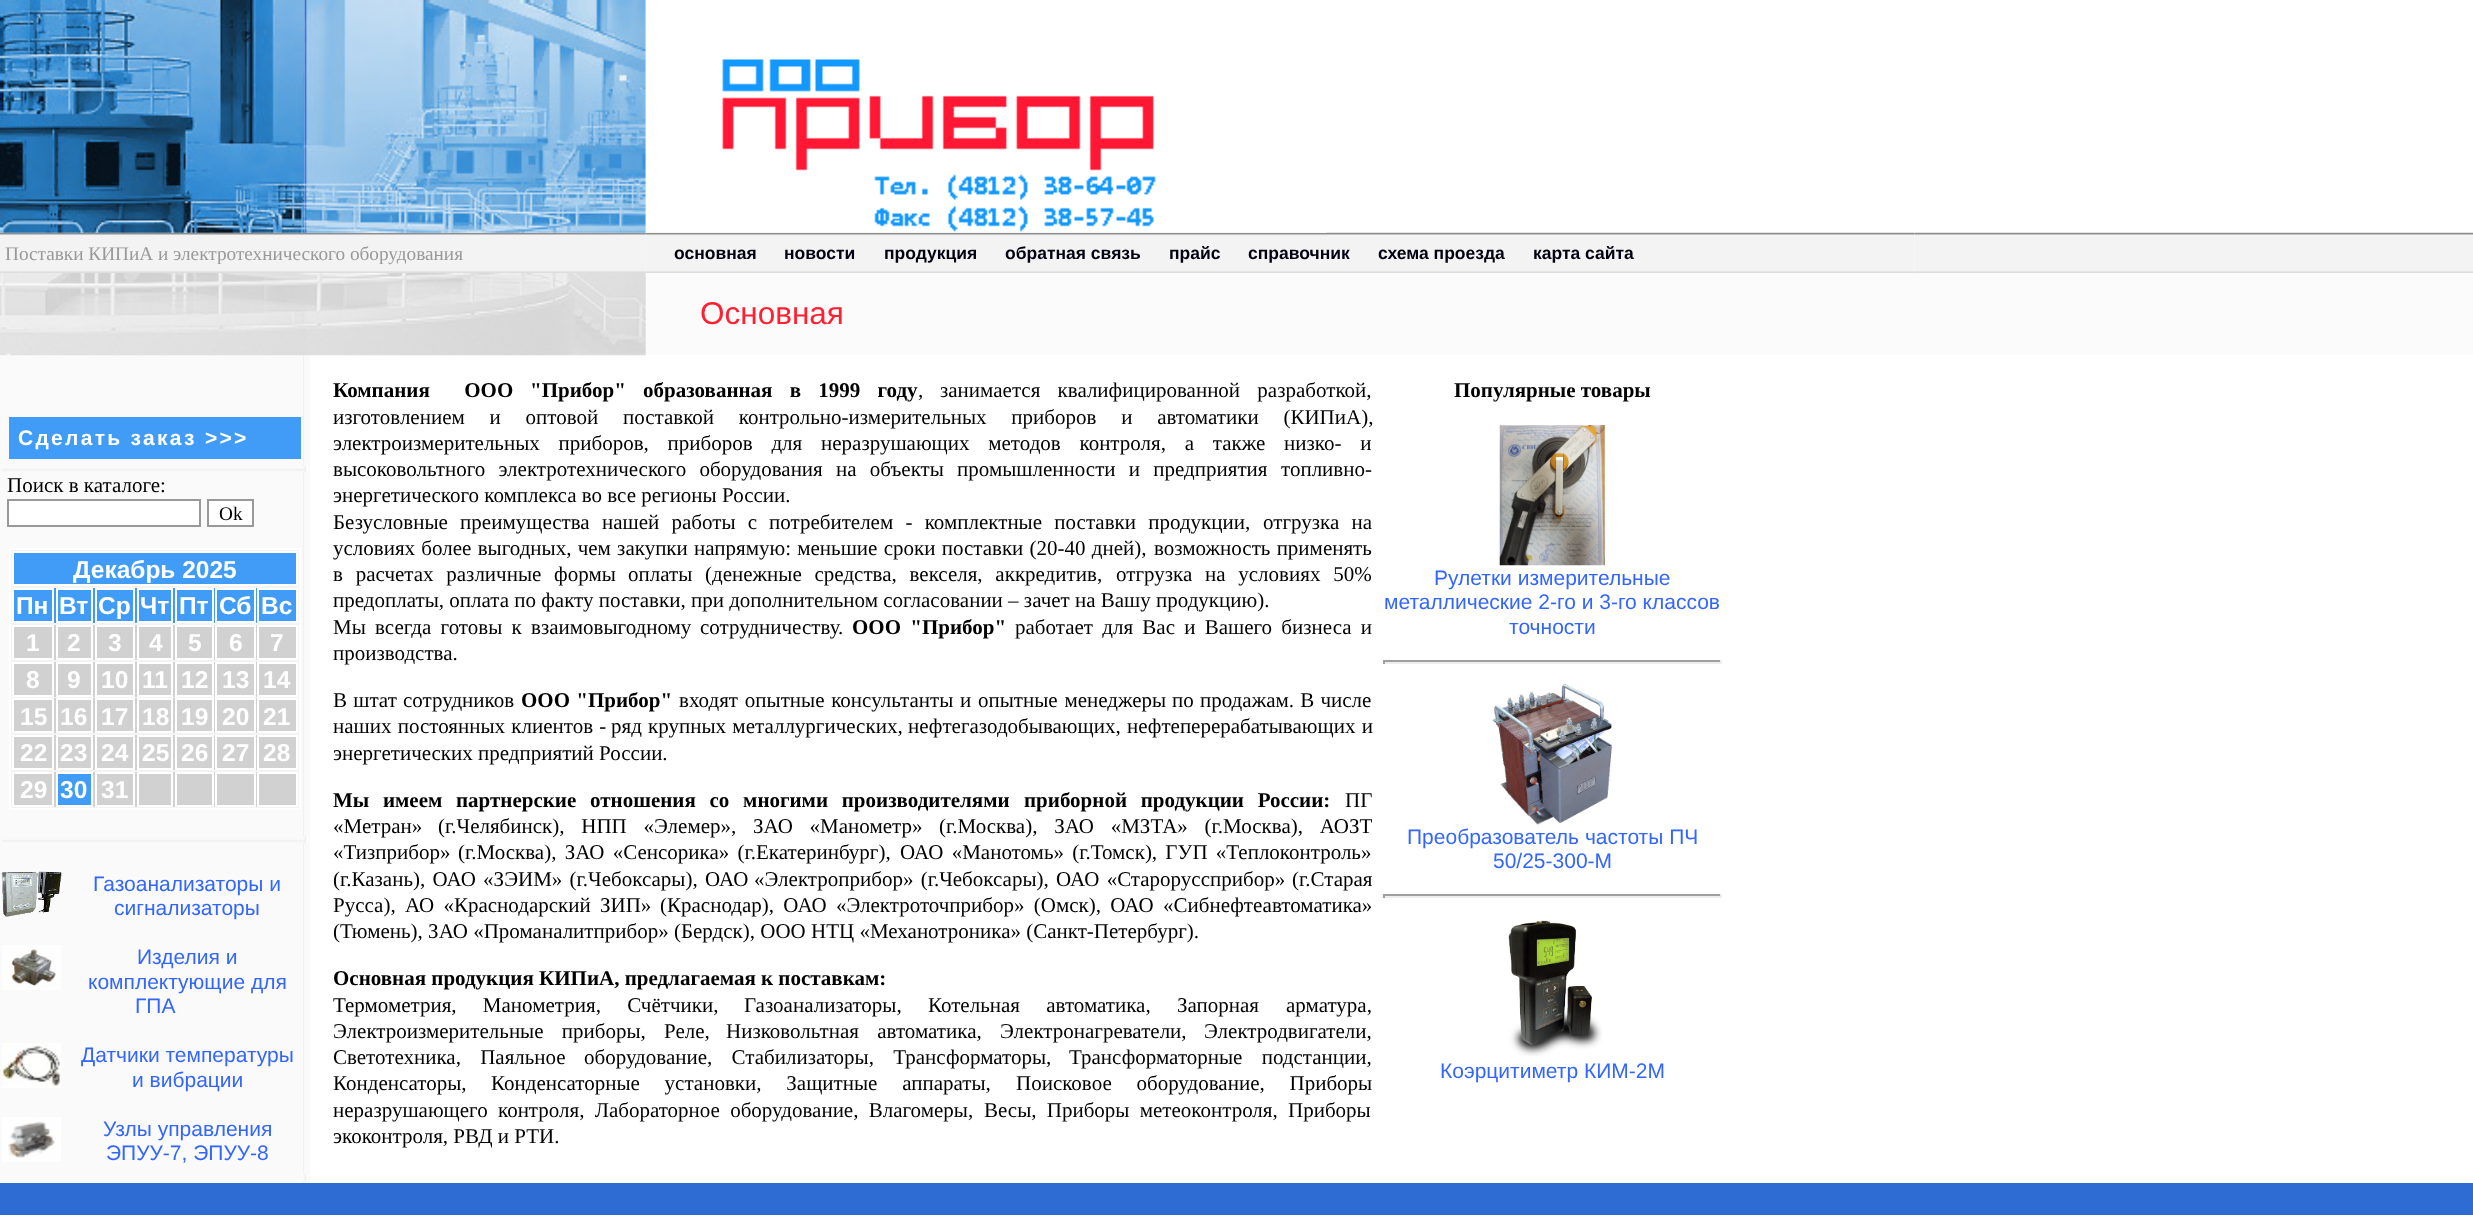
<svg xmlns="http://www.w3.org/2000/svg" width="2473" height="1226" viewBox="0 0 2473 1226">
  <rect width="100%" height="100%" fill="#ffffff"/>
  <image x="0" y="232" width="646" height="41" href="img4.png"/>
  <image x="0" y="0" width="305" height="233" href="img1.png"/>
  <image x="645" y="232" width="1270" height="41" href="img5.png"/>
  <image x="304" y="0" width="342" height="233" href="img2.png"/>
  <image x="645" y="0" width="682" height="233" href="img3.png"/>
  <text x="5" y="260" font-family="Liberation Serif" font-size="19.25" fill="#999999">Поставки КИПиА и электротехнического оборудования</text>
  <text x="674" y="259" font-family="Liberation Sans" font-size="17.5" font-weight="bold" fill="#000010">основная</text>
  <text x="784" y="259" font-family="Liberation Sans" font-size="17.5" font-weight="bold" fill="#000010">новости</text>
  <text x="884" y="259" font-family="Liberation Sans" font-size="17.5" font-weight="bold" fill="#000010">продукция</text>
  <text x="1005" y="259" font-family="Liberation Sans" font-size="17.5" font-weight="bold" fill="#000010">обратная связь</text>
  <text x="1169" y="259" font-family="Liberation Sans" font-size="17.5" font-weight="bold" fill="#000010">прайс</text>
  <text x="1248" y="259" font-family="Liberation Sans" font-size="17.5" font-weight="bold" fill="#000010">справочник</text>
  <text x="1378" y="259" font-family="Liberation Sans" font-size="17.5" font-weight="bold" fill="#000010">схема проезда</text>
  <text x="1533" y="259" font-family="Liberation Sans" font-size="17.5" font-weight="bold" fill="#000010">карта сайта</text>
  <image x="1914" y="232" width="559" height="41" href="img6.png"/>
  <rect x="0" y="355" width="310" height="828" fill="#fafafa"/>
  <image x="303" y="355" width="1" height="818" href="img8.png"/>
  <image x="0" y="273" width="646" height="83" href="img7.png"/>
  <rect x="646" y="273" width="1827" height="82" fill="#fbfbfb"/>
  <text x="700" y="324" font-family="Liberation Sans" font-size="31.5" fill="#ff2131">Основная</text>
  <rect x="9" y="417" width="292" height="42" fill="#409cf6"/>
  <text x="18" y="445" font-family="Liberation Sans" font-size="21" font-weight="bold" letter-spacing="2.3" fill="#ffffff">Сделать заказ &gt;&gt;&gt;</text>
  <image x="2" y="465" width="306" height="8" href="img9.png"/>
  <text x="7" y="492" font-family="Liberation Serif" font-size="21" fill="#000000">Поиск в каталоге:</text>
  <rect x="8" y="500" width="192" height="26" fill="#ffffff" stroke="#999999" stroke-width="2"/>
  <rect x="208" y="500" width="45" height="26" fill="#ffffff" stroke="#999999" stroke-width="2"/>
  <text x="219" y="520" font-family="Liberation Serif" font-size="19.25" fill="#000000">Ok</text>
  <rect x="10" y="549" width="290" height="260" fill="#f3f3f3" stroke="#ffffff" stroke-width="2"/>
  <rect x="13" y="552" width="284" height="33" fill="#409cf6" stroke="#ffffff" stroke-width="2"/>
  <text x="73" y="578" font-family="Liberation Sans" font-size="24.5" font-weight="bold" fill="#ffffff">Декабрь 2025</text>
  <rect x="14" y="588" width="282" height="35" fill="#409cf6"/>
  <rect x="13" y="589" width="40" height="33" fill="none" stroke="#ffffff" stroke-width="2"/>
  <text x="16" y="614" font-family="Liberation Sans" font-size="24.5" font-weight="bold" fill="#ffffff">Пн</text>
  <rect x="57" y="589" width="35" height="33" fill="none" stroke="#ffffff" stroke-width="2"/>
  <text x="59" y="614" font-family="Liberation Sans" font-size="24.5" font-weight="bold" fill="#ffffff">Вт</text>
  <rect x="96" y="589" width="38" height="33" fill="none" stroke="#ffffff" stroke-width="2"/>
  <text x="98" y="614" font-family="Liberation Sans" font-size="24.5" font-weight="bold" fill="#ffffff">Ср</text>
  <rect x="138" y="589" width="34" height="33" fill="none" stroke="#ffffff" stroke-width="2"/>
  <text x="140" y="614" font-family="Liberation Sans" font-size="24.5" font-weight="bold" fill="#ffffff">Чт</text>
  <rect x="176" y="589" width="37" height="33" fill="none" stroke="#ffffff" stroke-width="2"/>
  <text x="179" y="614" font-family="Liberation Sans" font-size="24.5" font-weight="bold" fill="#ffffff">Пт</text>
  <rect x="216" y="589" width="39" height="33" fill="none" stroke="#ffffff" stroke-width="2"/>
  <text x="219" y="614" font-family="Liberation Sans" font-size="24.5" font-weight="bold" fill="#ffffff">Сб</text>
  <rect x="258" y="589" width="39" height="33" fill="none" stroke="#ffffff" stroke-width="2"/>
  <text x="261" y="614" font-family="Liberation Sans" font-size="24.5" font-weight="bold" fill="#ffffff">Вс</text>
  <rect x="14" y="625" width="282" height="35" fill="#d1d1d1"/>
  <rect x="13" y="626" width="40" height="33" fill="none" stroke="#ffffff" stroke-width="2"/>
  <text x="26" y="651" font-family="Liberation Sans" font-size="24.5" font-weight="bold" fill="#ffffff">1</text>
  <rect x="57" y="626" width="35" height="33" fill="none" stroke="#ffffff" stroke-width="2"/>
  <text x="67" y="651" font-family="Liberation Sans" font-size="24.5" font-weight="bold" fill="#ffffff">2</text>
  <rect x="96" y="626" width="38" height="33" fill="none" stroke="#ffffff" stroke-width="2"/>
  <text x="108" y="651" font-family="Liberation Sans" font-size="24.5" font-weight="bold" fill="#ffffff">3</text>
  <rect x="138" y="626" width="34" height="33" fill="none" stroke="#ffffff" stroke-width="2"/>
  <text x="149" y="651" font-family="Liberation Sans" font-size="24.5" font-weight="bold" fill="#ffffff">4</text>
  <rect x="176" y="626" width="37" height="33" fill="none" stroke="#ffffff" stroke-width="2"/>
  <text x="188" y="651" font-family="Liberation Sans" font-size="24.5" font-weight="bold" fill="#ffffff">5</text>
  <rect x="216" y="626" width="39" height="33" fill="none" stroke="#ffffff" stroke-width="2"/>
  <text x="229" y="651" font-family="Liberation Sans" font-size="24.5" font-weight="bold" fill="#ffffff">6</text>
  <rect x="258" y="626" width="39" height="33" fill="none" stroke="#ffffff" stroke-width="2"/>
  <text x="270" y="651" font-family="Liberation Sans" font-size="24.5" font-weight="bold" fill="#ffffff">7</text>
  <rect x="14" y="662" width="282" height="35" fill="#d1d1d1"/>
  <rect x="13" y="663" width="40" height="33" fill="none" stroke="#ffffff" stroke-width="2"/>
  <text x="26" y="688" font-family="Liberation Sans" font-size="24.5" font-weight="bold" fill="#ffffff">8</text>
  <rect x="57" y="663" width="35" height="33" fill="none" stroke="#ffffff" stroke-width="2"/>
  <text x="67" y="688" font-family="Liberation Sans" font-size="24.5" font-weight="bold" fill="#ffffff">9</text>
  <rect x="96" y="663" width="38" height="33" fill="none" stroke="#ffffff" stroke-width="2"/>
  <text x="101" y="688" font-family="Liberation Sans" font-size="24.5" font-weight="bold" fill="#ffffff">10</text>
  <rect x="138" y="663" width="34" height="33" fill="none" stroke="#ffffff" stroke-width="2"/>
  <text x="142" y="688" font-family="Liberation Sans" font-size="24.5" font-weight="bold" fill="#ffffff">11</text>
  <rect x="176" y="663" width="37" height="33" fill="none" stroke="#ffffff" stroke-width="2"/>
  <text x="181" y="688" font-family="Liberation Sans" font-size="24.5" font-weight="bold" fill="#ffffff">12</text>
  <rect x="216" y="663" width="39" height="33" fill="none" stroke="#ffffff" stroke-width="2"/>
  <text x="222" y="688" font-family="Liberation Sans" font-size="24.5" font-weight="bold" fill="#ffffff">13</text>
  <rect x="258" y="663" width="39" height="33" fill="none" stroke="#ffffff" stroke-width="2"/>
  <text x="263" y="688" font-family="Liberation Sans" font-size="24.5" font-weight="bold" fill="#ffffff">14</text>
  <rect x="14" y="698" width="282" height="35" fill="#d1d1d1"/>
  <rect x="13" y="699" width="40" height="33" fill="none" stroke="#ffffff" stroke-width="2"/>
  <text x="20" y="725" font-family="Liberation Sans" font-size="24.5" font-weight="bold" fill="#ffffff">15</text>
  <rect x="57" y="699" width="35" height="33" fill="none" stroke="#ffffff" stroke-width="2"/>
  <text x="60" y="725" font-family="Liberation Sans" font-size="24.5" font-weight="bold" fill="#ffffff">16</text>
  <rect x="96" y="699" width="38" height="33" fill="none" stroke="#ffffff" stroke-width="2"/>
  <text x="101" y="725" font-family="Liberation Sans" font-size="24.5" font-weight="bold" fill="#ffffff">17</text>
  <rect x="138" y="699" width="34" height="33" fill="none" stroke="#ffffff" stroke-width="2"/>
  <text x="142" y="725" font-family="Liberation Sans" font-size="24.5" font-weight="bold" fill="#ffffff">18</text>
  <rect x="176" y="699" width="37" height="33" fill="none" stroke="#ffffff" stroke-width="2"/>
  <text x="181" y="725" font-family="Liberation Sans" font-size="24.5" font-weight="bold" fill="#ffffff">19</text>
  <rect x="216" y="699" width="39" height="33" fill="none" stroke="#ffffff" stroke-width="2"/>
  <text x="222" y="725" font-family="Liberation Sans" font-size="24.5" font-weight="bold" fill="#ffffff">20</text>
  <rect x="258" y="699" width="39" height="33" fill="none" stroke="#ffffff" stroke-width="2"/>
  <text x="263" y="725" font-family="Liberation Sans" font-size="24.5" font-weight="bold" fill="#ffffff">21</text>
  <rect x="14" y="735" width="282" height="35" fill="#d1d1d1"/>
  <rect x="13" y="736" width="40" height="33" fill="none" stroke="#ffffff" stroke-width="2"/>
  <text x="20" y="761" font-family="Liberation Sans" font-size="24.5" font-weight="bold" fill="#ffffff">22</text>
  <rect x="57" y="736" width="35" height="33" fill="none" stroke="#ffffff" stroke-width="2"/>
  <text x="60" y="761" font-family="Liberation Sans" font-size="24.5" font-weight="bold" fill="#ffffff">23</text>
  <rect x="96" y="736" width="38" height="33" fill="none" stroke="#ffffff" stroke-width="2"/>
  <text x="101" y="761" font-family="Liberation Sans" font-size="24.5" font-weight="bold" fill="#ffffff">24</text>
  <rect x="138" y="736" width="34" height="33" fill="none" stroke="#ffffff" stroke-width="2"/>
  <text x="142" y="761" font-family="Liberation Sans" font-size="24.5" font-weight="bold" fill="#ffffff">25</text>
  <rect x="176" y="736" width="37" height="33" fill="none" stroke="#ffffff" stroke-width="2"/>
  <text x="181" y="761" font-family="Liberation Sans" font-size="24.5" font-weight="bold" fill="#ffffff">26</text>
  <rect x="216" y="736" width="39" height="33" fill="none" stroke="#ffffff" stroke-width="2"/>
  <text x="222" y="761" font-family="Liberation Sans" font-size="24.5" font-weight="bold" fill="#ffffff">27</text>
  <rect x="258" y="736" width="39" height="33" fill="none" stroke="#ffffff" stroke-width="2"/>
  <text x="263" y="761" font-family="Liberation Sans" font-size="24.5" font-weight="bold" fill="#ffffff">28</text>
  <rect x="14" y="772" width="282" height="35" fill="#d1d1d1"/>
  <rect x="13" y="773" width="40" height="33" fill="none" stroke="#ffffff" stroke-width="2"/>
  <text x="20" y="798" font-family="Liberation Sans" font-size="24.5" font-weight="bold" fill="#ffffff">29</text>
  <rect x="57" y="773" width="35" height="33" fill="#409cf6" stroke="#ffffff" stroke-width="2"/>
  <text x="60" y="798" font-family="Liberation Sans" font-size="24.5" font-weight="bold" fill="#ffffff">30</text>
  <rect x="96" y="773" width="38" height="33" fill="none" stroke="#ffffff" stroke-width="2"/>
  <text x="101" y="798" font-family="Liberation Sans" font-size="24.5" font-weight="bold" fill="#ffffff">31</text>
  <rect x="138" y="773" width="34" height="33" fill="none" stroke="#ffffff" stroke-width="2"/>
  <rect x="176" y="773" width="37" height="33" fill="none" stroke="#ffffff" stroke-width="2"/>
  <rect x="216" y="773" width="39" height="33" fill="none" stroke="#ffffff" stroke-width="2"/>
  <rect x="258" y="773" width="39" height="33" fill="none" stroke="#ffffff" stroke-width="2"/>
  <image x="2" y="836" width="306" height="8" href="img9.png"/>
  <image x="1" y="871" width="61" height="46" href="img10.png"/>
  <text x="93" y="891" font-family="Liberation Sans" font-size="21" fill="#3366ff">Газоанализаторы и</text>
  <text x="114" y="915" font-family="Liberation Sans" font-size="21" fill="#3366ff">сигнализаторы</text>
  <image x="2" y="945" width="59" height="45" href="img11.png"/>
  <text x="137" y="964" font-family="Liberation Sans" font-size="21" fill="#3366ff">Изделия и</text>
  <text x="88" y="989" font-family="Liberation Sans" font-size="21" fill="#3366ff">комплектующие для</text>
  <text x="135" y="1013" font-family="Liberation Sans" font-size="21" fill="#3366ff">ГПА</text>
  <image x="1" y="1043" width="60" height="45" href="img12.png"/>
  <text x="81" y="1062" font-family="Liberation Sans" font-size="21" fill="#3366ff">Датчики температуры</text>
  <text x="132" y="1087" font-family="Liberation Sans" font-size="21" fill="#3366ff">и вибрации</text>
  <image x="2" y="1117" width="59" height="45" href="img13.png"/>
  <text x="103" y="1136" font-family="Liberation Sans" font-size="21" fill="#3366ff">Узлы управления</text>
  <text x="106" y="1160" font-family="Liberation Sans" font-size="21" fill="#3366ff">ЭПУУ-7, ЭПУУ-8</text>
  <text x="333" y="397" word-spacing="12" font-family="Liberation Serif" font-size="21" font-weight="bold" fill="#000000" xml:space="preserve">Компания  ООО</text>
  <text x="530" y="397" word-spacing="12" font-family="Liberation Serif" font-size="21" font-weight="bold" fill="#000000">"Прибор" образованная в 1999 году</text>
  <text x="918" y="397" font-family="Liberation Serif" font-size="21" fill="#000000">,</text>
  <text x="940" y="397" word-spacing="12" font-family="Liberation Serif" font-size="21" fill="#000000">занимается квалифицированной разработкой,</text>
  <text x="333" y="424" word-spacing="19.5" font-family="Liberation Serif" font-size="21" fill="#000000">изготовлением и оптовой поставкой контрольно-измерительных приборов и автоматики (КИПиА),</text>
  <text x="333" y="450" word-spacing="13.5" font-family="Liberation Serif" font-size="21" fill="#000000">электроизмерительных приборов, приборов для</text>
  <text x="821" y="450" word-spacing="13.5" font-family="Liberation Serif" font-size="21" fill="#000000">неразрушающих методов контроля, а также низко- и</text>
  <text x="333" y="476" word-spacing="8" font-family="Liberation Serif" font-size="21" fill="#000000">высоковольтного электротехнического оборудования</text>
  <text x="836" y="476" word-spacing="8" font-family="Liberation Serif" font-size="21" fill="#000000">на объекты промышленности и предприятия</text>
  <text x="1281" y="476" font-family="Liberation Serif" font-size="21" fill="#000000">топливно-</text>
  <text x="333" y="502" font-family="Liberation Serif" font-size="21" fill="#000000">энергетического комплекса во все регионы России.</text>
  <text x="333" y="529" word-spacing="7" font-family="Liberation Serif" font-size="21" fill="#000000">Безусловные преимущества нашей работы с</text>
  <text x="769" y="529" word-spacing="7" font-family="Liberation Serif" font-size="21" fill="#000000">потребителем - комплектные поставки продукции,</text>
  <text x="1263" y="529" word-spacing="7" font-family="Liberation Serif" font-size="21" fill="#000000">отгрузка на</text>
  <text x="333" y="555" word-spacing="1" font-family="Liberation Serif" font-size="21" fill="#000000">условиях более выгодных, чем закупки</text>
  <text x="694" y="555" word-spacing="1" font-family="Liberation Serif" font-size="21" fill="#000000">напрямую: меньшие сроки поставки (20-40 дней),</text>
  <text x="1154" y="555" word-spacing="1" font-family="Liberation Serif" font-size="21" fill="#000000">возможность применять</text>
  <text x="333" y="581" word-spacing="7.5" font-family="Liberation Serif" font-size="21" fill="#000000">в расчетах различные формы</text>
  <text x="628" y="581" word-spacing="7.5" font-family="Liberation Serif" font-size="21" fill="#000000">оплаты (денежные средства, векселя, аккредитив,</text>
  <text x="1116" y="581" word-spacing="7.5" font-family="Liberation Serif" font-size="21" fill="#000000">отгрузка на условиях 50%</text>
  <text x="333" y="607" font-family="Liberation Serif" font-size="21" fill="#000000">предоплаты, оплата по факту поставки, при дополнительном согласовании – зачет на Вашу продукцию).</text>
  <text x="333" y="634" word-spacing="4" font-family="Liberation Serif" font-size="21" fill="#000000">Мы всегда готовы к взаимовыгодному</text>
  <text x="700" y="634" font-family="Liberation Serif" font-size="21" fill="#000000">сотрудничеству.</text>
  <text x="852" y="634" word-spacing="4" font-family="Liberation Serif" font-size="21" font-weight="bold" fill="#000000">ООО "Прибор"</text>
  <text x="1015" y="634" word-spacing="4" font-family="Liberation Serif" font-size="21" fill="#000000">работает для Вас и Вашего бизнеса и</text>
  <text x="333" y="660" font-family="Liberation Serif" font-size="21" fill="#000000">производства.</text>
  <text x="333" y="707" word-spacing="1" font-family="Liberation Serif" font-size="21" fill="#000000">В штат</text>
  <text x="403" y="707" font-family="Liberation Serif" font-size="21" fill="#000000">сотрудников</text>
  <text x="521" y="707" word-spacing="1" font-family="Liberation Serif" font-size="21" font-weight="bold" fill="#000000">ООО "Прибор"</text>
  <text x="679" y="707" word-spacing="1.5" font-family="Liberation Serif" font-size="21" fill="#000000">входят опытные консультанты и опытные менеджеры</text>
  <text x="1172" y="707" word-spacing="1" font-family="Liberation Serif" font-size="21" fill="#000000">по продажам. В числе</text>
  <text x="333" y="733" word-spacing="1" font-family="Liberation Serif" font-size="21" fill="#000000">наших постоянных клиентов -</text>
  <text x="611" y="733" word-spacing="1" font-family="Liberation Serif" font-size="21" fill="#000000">ряд крупных металлургических,</text>
  <text x="908" y="733" word-spacing="1" font-family="Liberation Serif" font-size="21" fill="#000000">нефтегазодобывающих, нефтеперерабатывающих и</text>
  <text x="333" y="760" font-family="Liberation Serif" font-size="21" fill="#000000">энергетических предприятий России.</text>
  <text x="333" y="807" word-spacing="8.5" font-family="Liberation Serif" font-size="21" font-weight="bold" fill="#000000">Мы имеем</text>
  <text x="456" y="807" word-spacing="8.5" font-family="Liberation Serif" font-size="21" font-weight="bold" fill="#000000">партнерские отношения со многими производителями</text>
  <text x="1024" y="807" word-spacing="8.5" font-family="Liberation Serif" font-size="21" font-weight="bold" fill="#000000">приборной продукции России:</text>
  <text x="1345" y="807" font-family="Liberation Serif" font-size="21" fill="#000000">ПГ</text>
  <text x="333" y="833" font-family="Liberation Serif" font-size="21" fill="#000000">«Метран»</text>
  <text x="438" y="833" word-spacing="11.5" font-family="Liberation Serif" font-size="21" fill="#000000">(г.Челябинск), НПП «Элемер», ЗАО «Манометр»</text>
  <text x="939" y="833" word-spacing="11.5" font-family="Liberation Serif" font-size="21" fill="#000000">(г.Москва), ЗАО «МЗТА» (г.Москва), АОЗТ</text>
  <text x="333" y="859" font-family="Liberation Serif" font-size="21" fill="#000000">«Тизприбор»</text>
  <text x="458" y="859" word-spacing="3" font-family="Liberation Serif" font-size="21" fill="#000000">(г.Москва), ЗАО «Сенсорика» (г.Екатеринбург),</text>
  <text x="900" y="859" word-spacing="3" font-family="Liberation Serif" font-size="21" fill="#000000">ОАО «Манотомь» (г.Томск), ГУП «Теплоконтроль»</text>
  <text x="333" y="886" word-spacing="2" font-family="Liberation Serif" font-size="21" fill="#000000">(г.Казань), ОАО «ЗЭИМ» (г.Чебоксары), ОАО</text>
  <text x="754" y="886" word-spacing="2" font-family="Liberation Serif" font-size="21" fill="#000000">«Электроприбор» (г.Чебоксары), ОАО «Староруссприбор»</text>
  <text x="1292" y="886" font-family="Liberation Serif" font-size="21" fill="#000000">(г.Старая</text>
  <text x="333" y="912" word-spacing="4" font-family="Liberation Serif" font-size="21" fill="#000000">Русса), АО «Краснодарский ЗИП»</text>
  <text x="660" y="912" word-spacing="4" font-family="Liberation Serif" font-size="21" fill="#000000">(Краснодар), ОАО «Электроточприбор» (Омск), ОАО</text>
  <text x="1163" y="912" font-family="Liberation Serif" font-size="21" fill="#000000">«Сибнефтеавтоматика»</text>
  <text x="333" y="938" font-family="Liberation Serif" font-size="21" fill="#000000">(Тюмень), ЗАО «Проманалитприбор» (Бердск), ООО НТЦ «Механотроника» (Санкт-Петербург).</text>
  <text x="333" y="985" font-family="Liberation Serif" font-size="21" font-weight="bold" fill="#000000">Основная продукция КИПиА, предлагаемая к поставкам:</text>
  <text x="333" y="1012" word-spacing="21" font-family="Liberation Serif" font-size="21" fill="#000000">Термометрия, Манометрия, Счётчики,</text>
  <text x="744" y="1012" word-spacing="21" font-family="Liberation Serif" font-size="21" fill="#000000">Газоанализаторы, Котельная автоматика, Запорная</text>
  <text x="1286" y="1012" font-family="Liberation Serif" font-size="21" fill="#000000">арматура,</text>
  <text x="333" y="1038" word-spacing="13" font-family="Liberation Serif" font-size="21" fill="#000000">Электроизмерительные приборы, Реле,</text>
  <text x="726" y="1038" word-spacing="13" font-family="Liberation Serif" font-size="21" fill="#000000">Низковольтная автоматика, Электронагреватели,</text>
  <text x="1204" y="1038" font-family="Liberation Serif" font-size="21" fill="#000000">Электродвигатели,</text>
  <text x="333" y="1064" word-spacing="14" font-family="Liberation Serif" font-size="21" fill="#000000">Светотехника, Паяльное</text>
  <text x="584" y="1064" word-spacing="14" font-family="Liberation Serif" font-size="21" fill="#000000">оборудование, Стабилизаторы, Трансформаторы,</text>
  <text x="1069" y="1064" word-spacing="14" font-family="Liberation Serif" font-size="21" fill="#000000">Трансформаторные подстанции,</text>
  <text x="333" y="1090" font-family="Liberation Serif" font-size="21" fill="#000000">Конденсаторы,</text>
  <text x="491" y="1090" word-spacing="19.5" font-family="Liberation Serif" font-size="21" fill="#000000">Конденсаторные установки, Защитные аппараты,</text>
  <text x="1016" y="1090" word-spacing="19.5" font-family="Liberation Serif" font-size="21" fill="#000000">Поисковое оборудование, Приборы</text>
  <text x="333" y="1117" font-family="Liberation Serif" font-size="21" fill="#000000">неразрушающего</text>
  <text x="498" y="1117" word-spacing="5" font-family="Liberation Serif" font-size="21" fill="#000000">контроля, Лабораторное оборудование, Влагомеры,</text>
  <text x="984" y="1117" word-spacing="5" font-family="Liberation Serif" font-size="21" fill="#000000">Весы, Приборы метеоконтроля, Приборы</text>
  <text x="333" y="1143" font-family="Liberation Serif" font-size="21" fill="#000000">экоконтроля, РВД и РТИ.</text>
  <text x="1454" y="397" font-family="Liberation Serif" font-size="21" font-weight="bold" fill="#000000">Популярные товары</text>
  <image x="1499" y="425" width="106" height="141" href="img14.png"/>
  <text x="1434" y="585" font-family="Liberation Sans" font-size="21" fill="#3366ff">Рулетки измерительные</text>
  <text x="1384" y="609" font-family="Liberation Sans" font-size="21" fill="#3366ff">металлические 2-го и 3-го классов</text>
  <text x="1509" y="634" font-family="Liberation Sans" font-size="21" fill="#3366ff">точности</text>
  <rect x="1383" y="660" width="339" height="2" fill="#9f9f9f"/>
  <rect x="1720" y="660" width="2" height="4" fill="#eeeeee"/>
  <rect x="1383" y="662" width="339" height="2" fill="#eeeeee"/>
  <rect x="1383" y="660" width="2" height="4" fill="#9f9f9f"/>
  <image x="1492" y="684" width="120" height="141" href="img15.png"/>
  <text x="1407" y="844" font-family="Liberation Sans" font-size="21" fill="#3366ff">Преобразователь частоты ПЧ</text>
  <text x="1493" y="868" font-family="Liberation Sans" font-size="21" fill="#3366ff">50/25-300-М</text>
  <rect x="1383" y="894" width="339" height="2" fill="#9f9f9f"/>
  <rect x="1720" y="894" width="2" height="4" fill="#eeeeee"/>
  <rect x="1383" y="896" width="339" height="2" fill="#eeeeee"/>
  <rect x="1383" y="894" width="2" height="4" fill="#9f9f9f"/>
  <image x="1508" y="920" width="94" height="136" href="img16.png"/>
  <text x="1440" y="1078" font-family="Liberation Sans" font-size="21" fill="#3366ff">Коэрцитиметр КИМ-2М</text>
  <rect x="303" y="1173" width="1" height="10" fill="#f1f1f1"/>
  <image x="303" y="1174" width="5" height="7" href="img17.png"/>
  <rect x="0" y="1183" width="2473" height="32" fill="#2e6cd4"/>
</svg>
